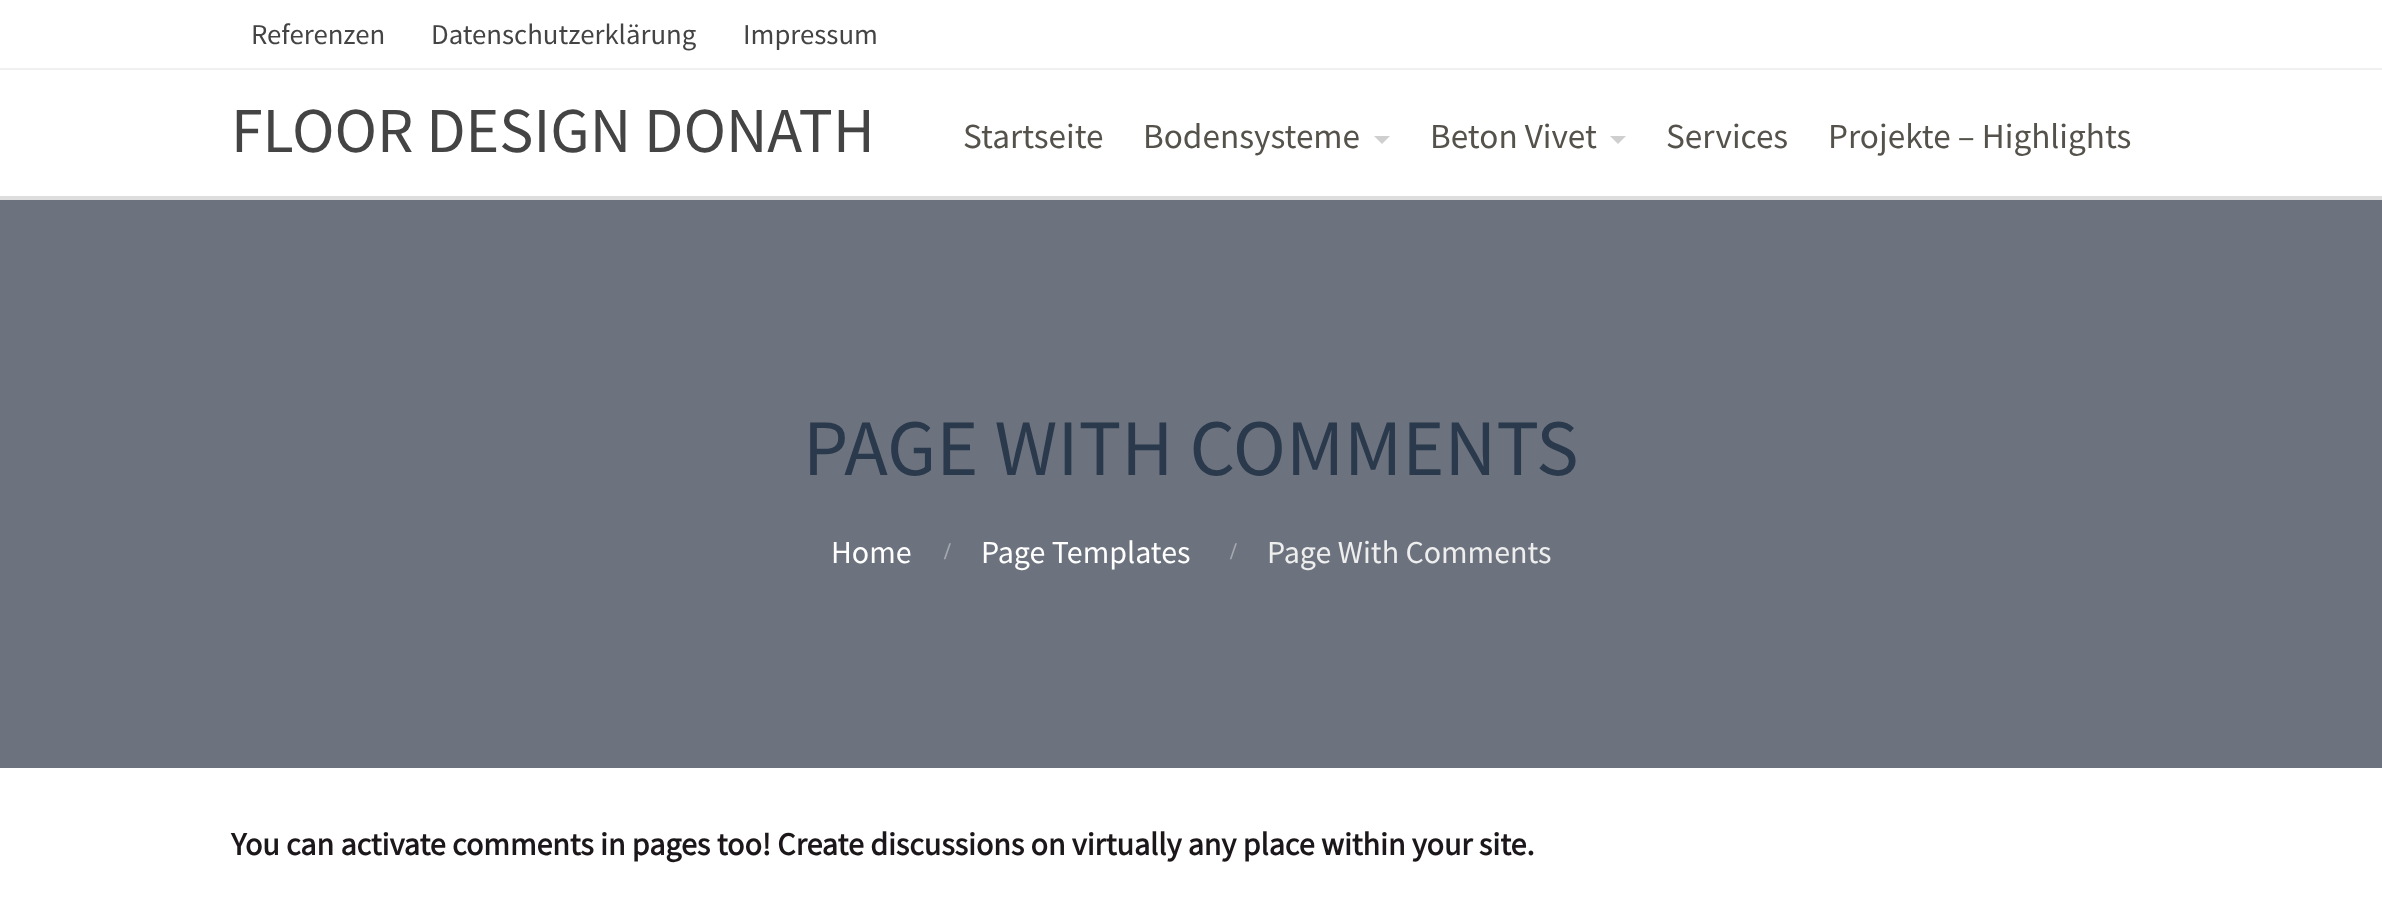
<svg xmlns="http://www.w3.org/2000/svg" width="2382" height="909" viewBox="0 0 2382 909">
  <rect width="100%" height="100%" fill="#ffffff"/>
  <rect x="0" y="68" width="2382" height="2" fill="#f0f0f0"/>
  <text x="251" y="44" font-family="Source Sans Pro" font-size="28.75" fill="#444444">Referenzen</text>
  <text x="431" y="44" font-family="Source Sans Pro" font-size="28.75" fill="#444444">Datenschutzerklärung</text>
  <text x="743" y="44" font-family="Source Sans Pro" font-size="28.75" fill="#444444">Impressum</text>
  <rect x="0" y="196" width="2382" height="4" fill="#dddddd"/>
  <text x="231" y="152" font-family="Source Sans Pro" font-size="64" fill="#444444">FLOOR DESIGN DONATH</text>
  <text x="963" y="148" font-family="Source Sans Pro" font-size="35.25" fill="#54524b">Startseite</text>
  <text x="1143" y="148" font-family="Source Sans Pro" font-size="35.25" fill="#54524b">Bodensysteme</text>
  <path d="M1374 136H1390L1382 144Z" fill="#cfcfcf"/>
  <text x="1430" y="148" font-family="Source Sans Pro" font-size="35.25" fill="#54524b">Beton Vivet</text>
  <path d="M1610 136H1626L1618 144Z" fill="#cfcfcf"/>
  <text x="1666" y="148" font-family="Source Sans Pro" font-size="35.25" fill="#54524b">Services</text>
  <text x="1828" y="148" font-family="Source Sans Pro" font-size="35.25" fill="#54524b">Projekte – Highlights</text>
  <rect x="0" y="200" width="2382" height="568" fill="#6c737e"/>
  <text x="803" y="475" font-family="Source Sans Pro" font-size="80" fill="#2a394c">PAGE WITH COMMENTS</text>
  <text x="831" y="563" font-family="Source Sans Pro" font-size="32" fill="#ffffff">Home</text>
  <text x="944" y="559" font-family="Liberation Serif" font-size="24" font-weight="bold" fill="#a5a8ae">/</text>
  <text x="981" y="563" font-family="Source Sans Pro" font-size="32" fill="#ffffff">Page Templates</text>
  <text x="1230" y="559" font-family="Liberation Serif" font-size="24" font-weight="bold" fill="#a5a8ae">/</text>
  <text x="1267" y="563" font-family="Source Sans Pro" font-size="32" fill="#eeeeee">Page With Comments</text>
  <text x="231" y="855" font-family="Source Sans Pro" font-size="32" font-weight="bold" fill="#1c171a">You can activate comments in pages too! Create discussions on virtually any place within your site.</text>
</svg>
